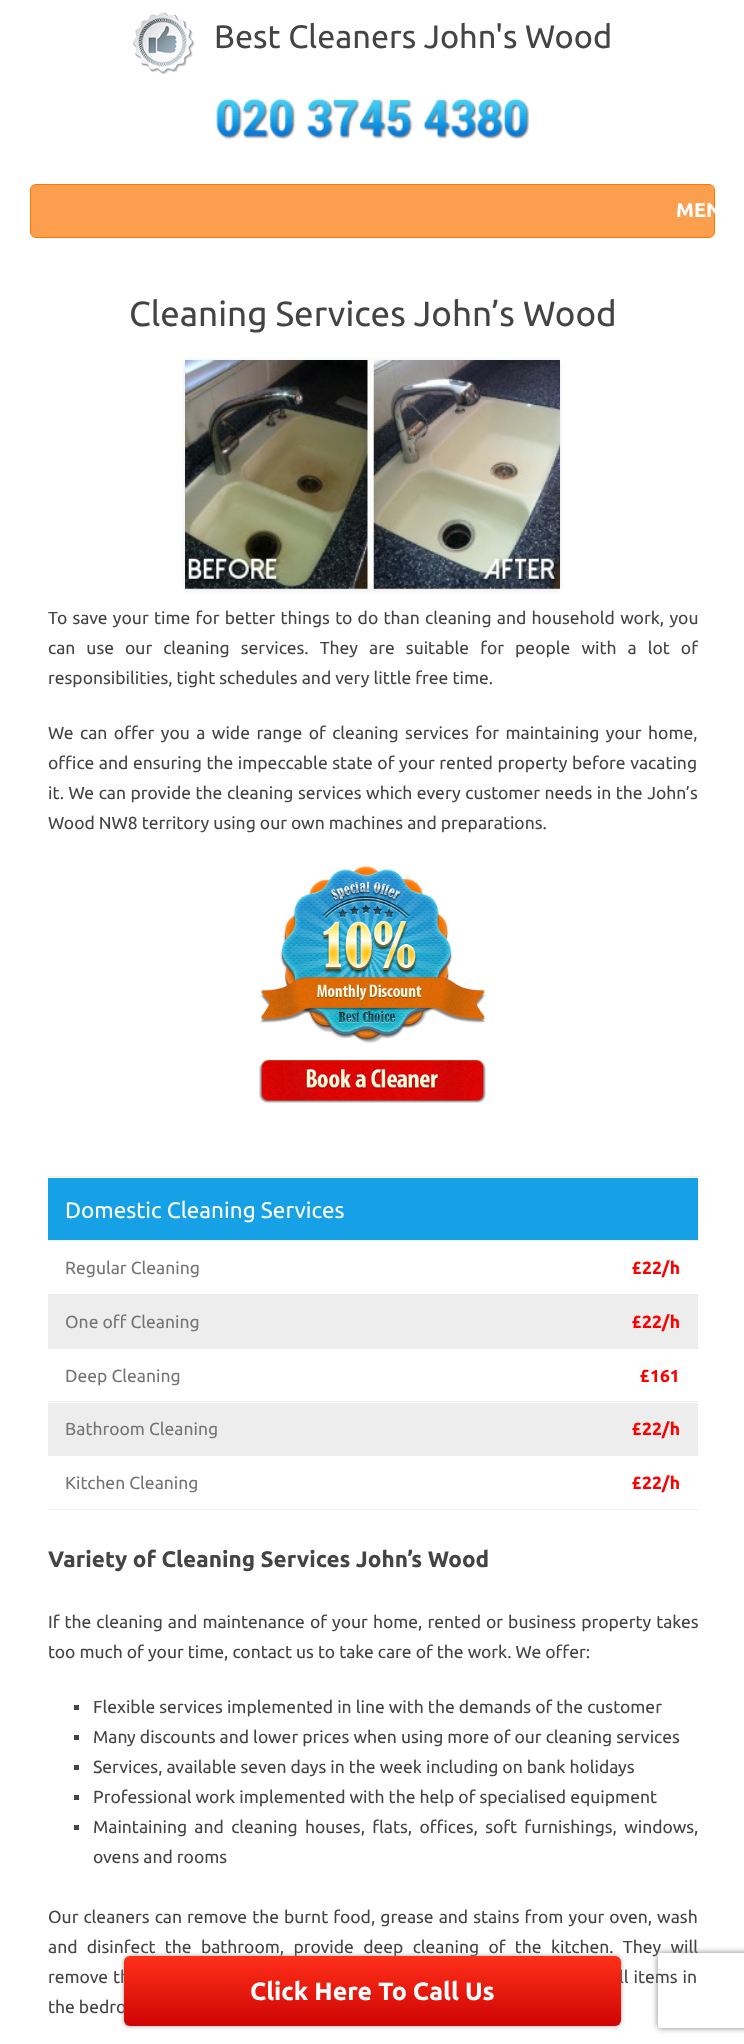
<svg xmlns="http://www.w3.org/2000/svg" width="744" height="2044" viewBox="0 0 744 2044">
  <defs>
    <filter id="blur1" x="-50%" y="-200%" width="200%" height="500%"><feGaussianBlur stdDeviation="2.5"/></filter>
    <filter id="blur2" x="-50%" y="-200%" width="200%" height="500%"><feGaussianBlur stdDeviation="2"/></filter>
    <linearGradient id="g1" gradientUnits="userSpaceOnUse" x1="373" y1="1956" x2="373" y2="2026"><stop offset="0" stop-color="#ff3019"/><stop offset="1" stop-color="#cf0404"/></linearGradient>
    <clipPath id="clip1"><path d="M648 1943H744V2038H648ZM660.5 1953H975.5C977 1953 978 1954 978 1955.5V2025.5C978 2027 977 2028 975.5 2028H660.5C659 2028 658 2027 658 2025.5V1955.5C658 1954 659 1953 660.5 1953Z" clip-rule="evenodd"/></clipPath>
    <filter id="blur3" x="-50%" y="-200%" width="200%" height="500%"><feGaussianBlur stdDeviation="3"/></filter>
  </defs>
  <rect width="100%" height="100%" fill="#ffffff"/>
  <image x="132" y="12" width="63" height="63" href="img1.png"/>
  <text x="214" y="48" font-family="Ubuntu" font-size="32.5" fill="#444444">Best Cleaners John's Wood</text>
  <image x="216" y="98" width="313" height="41" href="img2.png"/>
  <rect x="30.5" y="184.5" width="684" height="53" rx="5.5" fill="#fb9f4e" stroke="#ff7700"/>
  <text x="676" y="217" font-family="Ubuntu" font-size="20" font-weight="bold" fill="#ffffff">MEN</text>
  <text x="129" y="326" font-family="Ubuntu" font-size="35" fill="#444444">Cleaning Services John’s Wood</text>
  <rect x="185" y="361" width="375" height="229" fill="#000000" fill-opacity="0.1" filter="url(#blur1)"/>
  <image x="185" y="360" width="375" height="229" href="img3.png"/>
  <text x="48" y="624" word-spacing="1.25" font-family="Ubuntu" font-size="17.5" fill="#444444">To save your time for better things to do than cleaning and household work, you</text>
  <text x="48" y="654" word-spacing="7" font-family="Ubuntu" font-size="17.5" fill="#444444">can use our cleaning services. They are suitable for people with a lot of</text>
  <text x="48" y="684" font-family="Ubuntu" font-size="17.5" fill="#444444">responsibilities, tight schedules and very little free time.</text>
  <text x="48" y="739" word-spacing="2.4" font-family="Ubuntu" font-size="17.5" fill="#444444">We can offer you a wide range of cleaning services for maintaining your home,</text>
  <text x="48" y="769" word-spacing="0.5" font-family="Ubuntu" font-size="17.5" fill="#444444">office and ensuring the impeccable state of your rented property before vacating</text>
  <text x="48" y="799" word-spacing="0.5" font-family="Ubuntu" font-size="17.5" fill="#444444">it. We can provide the cleaning services which every customer needs in the John’s</text>
  <text x="48" y="829" font-family="Ubuntu" font-size="17.5" fill="#444444">Wood NW8 territory using our own machines and preparations.</text>
  <image x="259" y="866" width="227" height="237" href="img4.png"/>
  <rect x="48" y="1509" width="650" height="1" fill="#ededed"/>
  <rect x="48" y="1178" width="650" height="62" fill="#16a1e7"/>
  <rect x="48" y="1176" width="651" height="1" fill="#ededed"/>
  <text x="65" y="1218" font-family="Ubuntu" font-size="22.5" fill="#ffffff">Domestic Cleaning Services</text>
  <text x="65" y="1274" font-family="Ubuntu" font-size="17.5" fill="#757575">Regular Cleaning</text>
  <rect x="48" y="1240" width="651" height="1" fill="#ededed"/>
  <text x="632" y="1274" font-family="Ubuntu" font-size="17.5" font-weight="bold" fill="#ff0000">£22/h</text>
  <rect x="48" y="1295" width="650" height="54" fill="#ededed"/>
  <text x="65" y="1328" font-family="Ubuntu" font-size="17.5" fill="#757575">One off Cleaning</text>
  <rect x="48" y="1294" width="651" height="1" fill="#ededed"/>
  <text x="632" y="1328" font-family="Ubuntu" font-size="17.5" font-weight="bold" fill="#ff0000">£22/h</text>
  <text x="65" y="1382" font-family="Ubuntu" font-size="17.5" fill="#757575">Deep Cleaning</text>
  <rect x="698" y="1348" width="1" height="1" fill="#ededed"/>
  <text x="640" y="1382" font-family="Ubuntu" font-size="17.5" font-weight="bold" fill="#ff0000">£161</text>
  <rect x="48" y="1403" width="650" height="53" fill="#ededed"/>
  <text x="65" y="1435" font-family="Ubuntu" font-size="17.5" fill="#757575">Bathroom Cleaning</text>
  <rect x="48" y="1401" width="651" height="1" fill="#ededed"/>
  <text x="632" y="1435" font-family="Ubuntu" font-size="17.5" font-weight="bold" fill="#ff0000">£22/h</text>
  <text x="65" y="1489" font-family="Ubuntu" font-size="17.5" fill="#757575">Kitchen Cleaning</text>
  <rect x="698" y="1455" width="1" height="1" fill="#ededed"/>
  <text x="632" y="1489" font-family="Ubuntu" font-size="17.5" font-weight="bold" fill="#ff0000">£22/h</text>
  <text x="48" y="1567" font-family="Ubuntu" font-size="22.5" font-weight="bold" fill="#444444">Variety of Cleaning Services John’s Wood</text>
  <text x="48" y="1628" word-spacing="1" font-family="Ubuntu" font-size="17.5" fill="#444444">If the cleaning and maintenance of your home, rented or business property takes</text>
  <text x="48" y="1658" font-family="Ubuntu" font-size="17.5" fill="#444444">too much of your time, contact us to take care of the work. We offer:</text>
  <rect x="74" y="1705" width="5" height="5" fill="#444444"/>
  <text x="93" y="1713" font-family="Ubuntu" font-size="17.5" fill="#444444">Flexible services implemented in line with the demands of the customer</text>
  <rect x="74" y="1735" width="5" height="5" fill="#444444"/>
  <text x="93" y="1743" font-family="Ubuntu" font-size="17.5" fill="#444444">Many discounts and lower prices when using more of our cleaning services</text>
  <rect x="74" y="1765" width="5" height="5" fill="#444444"/>
  <text x="93" y="1773" font-family="Ubuntu" font-size="17.5" fill="#444444">Services, available seven days in the week including on bank holidays</text>
  <rect x="74" y="1795" width="5" height="5" fill="#444444"/>
  <text x="93" y="1803" font-family="Ubuntu" font-size="17.5" fill="#444444">Professional work implemented with the help of specialised equipment</text>
  <rect x="74" y="1825" width="5" height="5" fill="#444444"/>
  <text x="93" y="1833" word-spacing="3.25" font-family="Ubuntu" font-size="17.5" fill="#444444">Maintaining and cleaning houses, flats, offices, soft furnishings, windows,</text>
  <text x="93" y="1863" font-family="Ubuntu" font-size="17.5" fill="#444444">ovens and rooms</text>
  <text x="48" y="1923" word-spacing="1" font-family="Ubuntu" font-size="17.5" fill="#444444">Our cleaners can remove the burnt food, grease and stains from your oven, wash</text>
  <text x="48" y="1953" word-spacing="5.25" font-family="Ubuntu" font-size="17.5" fill="#444444">and disinfect the bathroom, provide deep cleaning of the kitchen. They will</text>
  <text x="48" y="1983" word-spacing="1" font-family="Ubuntu" font-size="17.5" fill="#444444">remove th</text>
  <text x="619" y="1983" word-spacing="1" font-family="Ubuntu" font-size="17.5" fill="#444444">ll items in</text>
  <text x="48" y="2013" font-family="Ubuntu" font-size="17.5" fill="#444444">the bedro</text>
  <rect x="124" y="1956" width="497" height="70" rx="6" fill="#999999" filter="url(#blur2)"/>
  <rect x="124" y="1956" width="497" height="70" rx="6" fill="url(#g1)"/>
  <text x="250" y="2000" font-family="Ubuntu" font-size="25" font-weight="bold" fill="#ffffff">Click Here To Call Us</text>
  <g clip-path="url(#clip1)">
    <rect x="658" y="1953" width="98" height="75" rx="2.5" fill="#808080" filter="url(#blur3)"/>
  </g>
</svg>
